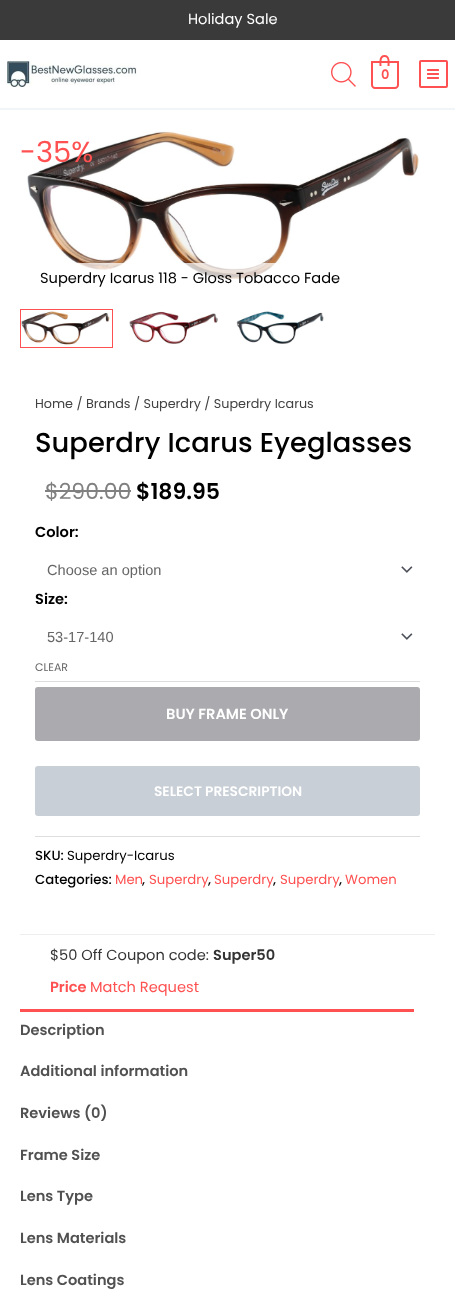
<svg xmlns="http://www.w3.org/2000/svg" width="455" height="1294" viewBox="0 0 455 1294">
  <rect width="100%" height="100%" fill="#ffffff"/>
  <rect x="0" y="0" width="455" height="40" fill="#3a3a3a"/>
  <text x="188" y="24" font-family="Poppins" font-size="14.6" fill="#ffffff">Holiday Sale</text>
  <rect x="0" y="108" width="455" height="2" fill="#f2f5f7"/>
  <image x="7" y="61" width="130" height="26" href="img1.png"/>
  <image x="331" y="62" width="25" height="25" href="img2.png"/>
  <path d="M372 62H398V85C398 86.5 396.5 88 395 88H375C373.5 88 372 86.5 372 85Z" fill="none" stroke="#ff5151" stroke-width="2"/>
  <path d="M384.5 55C390.5 55 389.5 62 389.5 66H379.5C379.5 62 378.5 55 384.5 55ZM384.5 57C389 57 387.5 63.5 387.5 66H381.5C381.5 63.5 380.5 57 384.5 57Z" fill="#ff5151" fill-rule="evenodd"/>
  <text x="381" y="79" font-family="Poppins" font-size="13" font-weight="600" fill="#ff5151">0</text>
  <rect x="420" y="61" width="27" height="26" rx="1" fill="none" stroke="#ff5151" stroke-width="2"/>
  <image x="427" y="69" width="12" height="10" href="img3.png"/>
  <image x="27" y="131" width="392" height="150" href="img4.png"/>
  <text x="20" y="162" font-family="Poppins" font-size="29" fill="#ff5151">-35%</text>
  <rect x="76" y="263" width="201" height="18" fill="#ffffff" fill-opacity="0.75"/>
  <text x="40" y="283" font-family="Poppins" font-size="14.6" fill="#000000">Superdry Icarus 118 - Gloss Tobacco Fade</text>
  <image x="21" y="311" width="89" height="34" href="img5.png"/>
  <rect x="20.5" y="309.5" width="92" height="38" fill="none" stroke="#fe5051"/>
  <image x="129" y="311" width="89" height="33" href="img6.png"/>
  <image x="236" y="311" width="88" height="33" href="img7.png"/>
  <text x="35" y="408" font-family="Poppins" font-size="12.75" fill="#424242">Home / Brands / Superdry / Superdry Icarus</text>
  <text x="35" y="452" font-family="Poppins" font-size="27.4" font-weight="500" fill="#000000">Superdry Icarus Eyeglasses</text>
  <text x="45" y="499" font-family="Poppins" font-size="22" fill="#808080">$290.00</text>
  <rect x="45" y="490" width="86" height="2" fill="#808080"/>
  <text x="136" y="499" font-family="Poppins" font-size="22" font-weight="600" fill="#000000">$189.95</text>
  <rect x="35" y="681" width="385" height="1" fill="#dddddd"/>
  <text x="35" y="537" font-family="Poppins" font-size="14.6" font-weight="600" fill="#000000">Color:</text>
  <image x="401" y="566" width="12" height="7" href="img8.png"/>
  <text x="47" y="575" font-family="Liberation Sans" font-size="14.6" fill="#666666">Choose an option</text>
  <text x="35" y="604" font-family="Poppins" font-size="14.6" font-weight="600" fill="#000000">Size:</text>
  <image x="401" y="633" width="12" height="7" href="img8.png"/>
  <text x="47" y="642" font-family="Liberation Sans" font-size="14.6" fill="#666666">53-17-140</text>
  <text x="35" y="671" font-family="Poppins" font-size="11" fill="#666666">CLEAR</text>
  <rect x="35" y="687" width="385" height="54" rx="3" fill="#aaaaaf"/>
  <text x="166" y="719" font-family="Poppins" font-size="14.6" font-weight="600" fill="#ffffff">BUY FRAME ONLY</text>
  <rect x="35" y="766" width="385" height="50" rx="3" fill="#c8cfd6"/>
  <text x="154" y="796" font-family="Poppins" font-size="13.75" font-weight="600" fill="#ffffff">SELECT PRESCRIPTION</text>
  <rect x="35" y="836" width="385" height="1" fill="#dddddd"/>
  <text x="35" y="860" font-family="Poppins" font-size="13.25" font-weight="500" fill="#000000">SKU:</text>
  <text x="67" y="860" font-family="Poppins" font-size="13.25" fill="#000000">Superdry-Icarus</text>
  <text x="35" y="884" font-family="Poppins" font-size="13.25" font-weight="500" fill="#000000">Categories:</text>
  <text x="115" y="884" font-family="Poppins" font-size="13.25" fill="#ff5151">Men</text>
  <text x="142" y="884" font-family="Poppins" font-size="13.25" font-weight="500" fill="#000000">,</text>
  <text x="149" y="884" font-family="Poppins" font-size="13.25" fill="#ff5151">Superdry</text>
  <text x="208" y="884" font-family="Poppins" font-size="13.25" font-weight="500" fill="#000000">,</text>
  <text x="214" y="884" font-family="Poppins" font-size="13.25" fill="#ff5151">Superdry</text>
  <text x="273" y="884" font-family="Poppins" font-size="13.25" font-weight="500" fill="#000000">,</text>
  <text x="280" y="884" font-family="Poppins" font-size="13.25" fill="#ff5151">Superdry</text>
  <text x="339" y="884" font-family="Poppins" font-size="13.25" font-weight="500" fill="#000000">,</text>
  <text x="345" y="884" font-family="Poppins" font-size="13.25" fill="#ff5151">Women</text>
  <rect x="20" y="934" width="415" height="1" fill="#eeeeee"/>
  <text x="50" y="960" font-family="Poppins" font-size="14.6" fill="#333333">$50 Off Coupon code:</text>
  <text x="213" y="960" font-family="Poppins" font-size="14.6" font-weight="600" fill="#333333">Super50</text>
  <text x="50" y="992" font-family="Poppins" font-size="14.6" font-weight="600" fill="#ff5151">Price</text>
  <text x="90" y="992" font-family="Poppins" font-size="14.6" fill="#ff5151">Match Request</text>
  <rect x="20" y="1009" width="394" height="3" fill="#ff5151"/>
  <text x="20" y="1035" font-family="Poppins" font-size="14.6" font-weight="600" fill="#515151">Description</text>
  <text x="20" y="1076" font-family="Poppins" font-size="14.6" font-weight="600" fill="#515151">Additional information</text>
  <text x="20" y="1118" font-family="Poppins" font-size="14.6" font-weight="600" fill="#515151">Reviews (0)</text>
  <text x="20" y="1160" font-family="Poppins" font-size="14.6" font-weight="600" fill="#515151">Frame Size</text>
  <text x="20" y="1201" font-family="Poppins" font-size="14.6" font-weight="600" fill="#515151">Lens Type</text>
  <text x="20" y="1243" font-family="Poppins" font-size="14.6" font-weight="600" fill="#515151">Lens Materials</text>
  <text x="20" y="1285" font-family="Poppins" font-size="14.6" font-weight="600" fill="#515151">Lens Coatings</text>
</svg>
